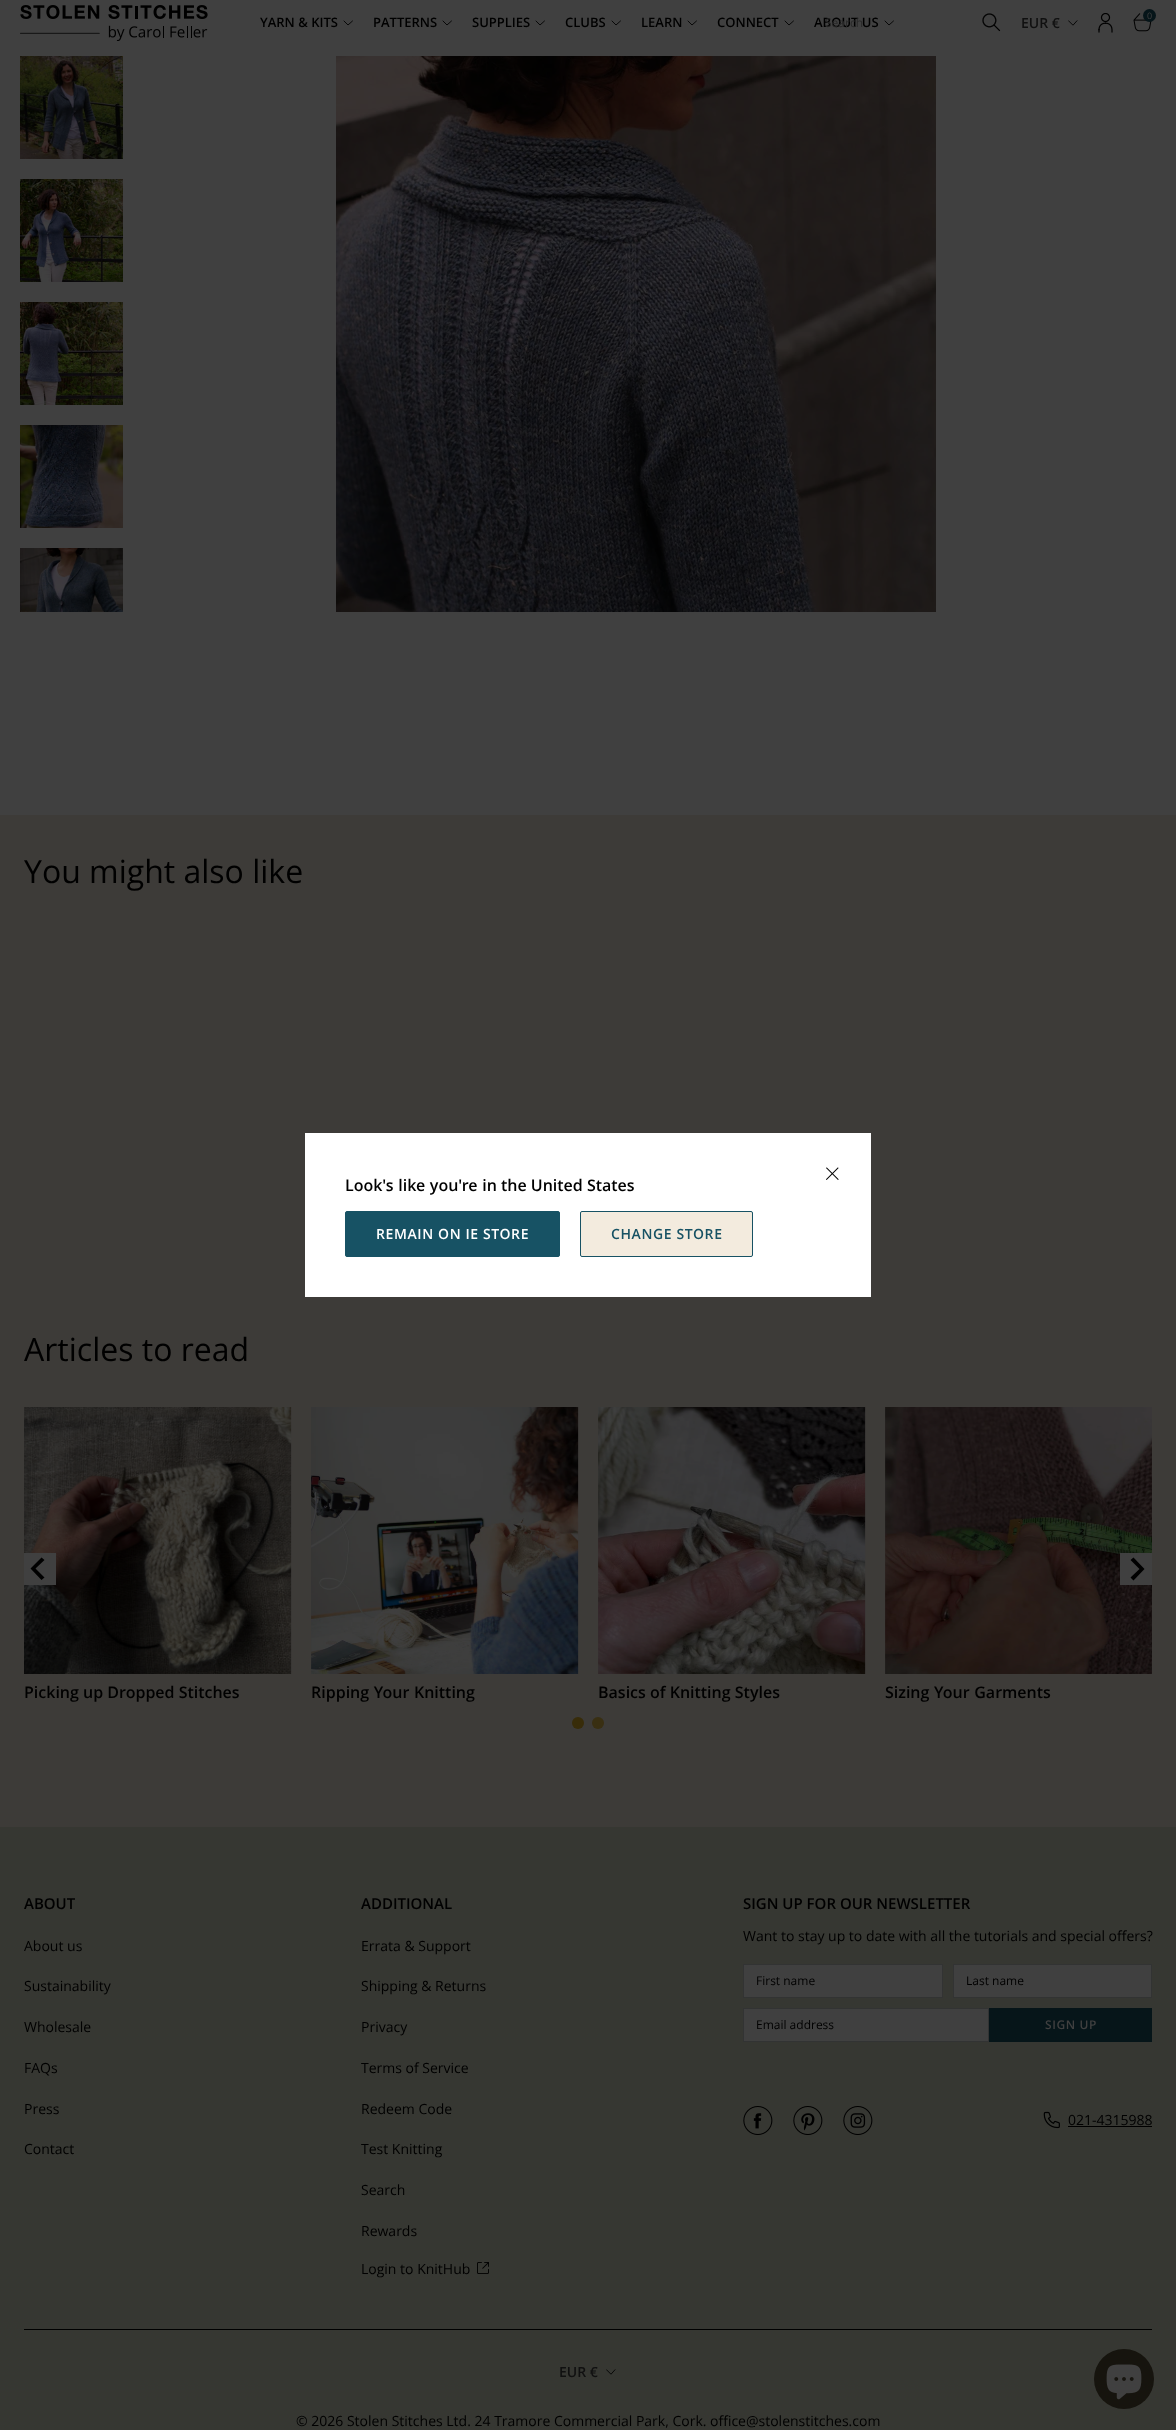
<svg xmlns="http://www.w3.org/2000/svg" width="1176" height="2430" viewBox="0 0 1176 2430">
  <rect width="100%" height="100%" fill="#404040"/>
  <image x="20" y="5" width="188" height="36" href="img1.png"/>
  <text x="260" y="27" font-family="Open Sans" font-size="13" font-weight="600" fill="#000000">YARN &amp; KITS</text>
  <path d="M344 21L348 25L352.5 21" fill="none" stroke="#080808" stroke-linecap="round"/>
  <text x="373" y="27" font-family="Open Sans" font-size="13" font-weight="600" fill="#000000">PATTERNS</text>
  <path d="M443 21L447 25L451.5 21" fill="none" stroke="#080808" stroke-linecap="round"/>
  <text x="472" y="27" font-family="Open Sans" font-size="13" font-weight="600" fill="#000000">SUPPLIES</text>
  <path d="M536 21L540 25L544.5 21" fill="none" stroke="#080808" stroke-linecap="round"/>
  <text x="565" y="27" font-family="Open Sans" font-size="13" font-weight="600" fill="#000000">CLUBS</text>
  <path d="M612 21L616 25L620.5 21" fill="none" stroke="#080808" stroke-linecap="round"/>
  <text x="641" y="27" font-family="Open Sans" font-size="13" font-weight="600" fill="#000000">LEARN</text>
  <path d="M688 21L692 25L696.5 21" fill="none" stroke="#080808" stroke-linecap="round"/>
  <text x="717" y="27" font-family="Open Sans" font-size="13" font-weight="600" fill="#000000">CONNECT</text>
  <path d="M785 21L789 25L793.5 21" fill="none" stroke="#080808" stroke-linecap="round"/>
  <text x="814" y="27" font-family="Open Sans" font-size="13" font-weight="600" fill="#000000">ABOUT US</text>
  <path d="M885 21L889 25L893.5 21" fill="none" stroke="#080808" stroke-linecap="round"/>
  <text x="825" y="27" font-family="Open Sans" font-size="12" fill="#292929">Search</text>
  <image x="982" y="13" width="19" height="19" href="img2.png"/>
  <text x="1021" y="28" font-family="Open Sans" font-size="14" font-weight="600" fill="#101010">EUR €</text>
  <image x="1068" y="20" width="10" height="6" href="img3.png"/>
  <image x="1098" y="13" width="15" height="20" href="img4.png"/>
  <image x="1133" y="13" width="19" height="19" href="img5.png"/>
  <circle cx="1149.5" cy="15.5" r="6.5" fill="#061519"/>
  <text x="1147" y="19" font-family="Open Sans" font-size="9" fill="#404040">0</text>
  <image x="20" y="56" width="103" height="103" href="img6.png"/>
  <image x="20" y="179" width="103" height="103" href="img7.png"/>
  <image x="20" y="302" width="103" height="103" href="img8.png"/>
  <image x="20" y="425" width="103" height="103" href="img9.png"/>
  <image x="20" y="548" width="103" height="64" href="img10.png"/>
  <image x="336" y="56" width="600" height="556" href="img11.png"/>
  <rect x="0" y="815" width="1176" height="1012" fill="#3d3b38"/>
  <text x="24" y="883" font-family="Open Sans" font-size="32" fill="#000000">You might also like</text>
  <text x="24" y="1361" font-family="Open Sans" font-size="32" fill="#000000">Articles to read</text>
  <image x="24" y="1407" width="268" height="267" href="img12.png"/>
  <rect x="24" y="1553" width="32" height="32" fill="#404040"/>
  <path d="M41.5 1580L44.5 1577.5L35.5 1568.5L44.5 1560L41.5 1557.5L30.5 1568.5Z" fill="#000000"/>
  <image x="885" y="1407" width="267" height="267" href="img15.png"/>
  <rect x="1120" y="1553" width="32" height="32" fill="#404040"/>
  <path d="M1133.5 1557.5L1130.5 1560L1139.5 1569L1130.5 1577.5L1133.5 1580.5L1144.5 1569Z" fill="#000000"/>
  <text x="24" y="1698" font-family="'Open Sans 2'" font-size="16" font-weight="600" fill="#000000">Picking up Dropped Stitches</text>
  <image x="311" y="1407" width="268" height="267" href="img13.png"/>
  <text x="311" y="1698" word-spacing="0.5" font-family="'Open Sans 2'" font-size="16" font-weight="600" fill="#000000">Ripping Your Knitting</text>
  <image x="598" y="1407" width="268" height="267" href="img14.png"/>
  <text x="598" y="1698" font-family="'Open Sans 2'" font-size="16" font-weight="600" fill="#000000">Basics of Knitting Styles</text>
  <text x="885" y="1698" word-spacing="0.5" font-family="'Open Sans 2'" font-size="16" font-weight="600" fill="#000000">Sizing Your Garments</text>
  <circle cx="578" cy="1723" r="6" fill="#382c09"/>
  <circle cx="598" cy="1723" r="6" fill="#392f12"/>
  <rect x="305" y="1133" width="566" height="164" fill="#ffffff"/>
  <image x="826" y="1167" width="13" height="13" href="img16.png"/>
  <text x="345" y="1191" word-spacing="0.5" font-family="'Open Sans 2'" font-size="16" font-weight="600" fill="#000000">Look's like you're in</text>
  <text x="501" y="1191" font-family="'Open Sans 2'" font-size="16" font-weight="600" fill="#000000">the United States</text>
  <rect x="345.5" y="1211.5" width="214" height="45" rx="1.5" fill="#175264" stroke="#175264"/>
  <text x="376" y="1239" font-family="'Open Sans 2'" font-size="14" font-weight="600" letter-spacing="0.6" fill="#ffffff">REMAIN ON IE STORE</text>
  <rect x="580.5" y="1211.5" width="172" height="45" rx="1.5" fill="#f3ebde" stroke="#175264"/>
  <text x="611" y="1239" font-family="'Open Sans 2'" font-size="14" font-weight="600" letter-spacing="0.6" fill="#175264">CHANGE STORE</text>
  <rect x="0" y="1827" width="1176" height="603" fill="#363732"/>
  <rect x="24" y="2329" width="1128" height="1" fill="#000000"/>
  <text x="24" y="1909" font-family="Open Sans" font-size="15" font-weight="600" fill="#000000">ABOUT</text>
  <text x="24" y="1951" font-family="Open Sans" font-size="14" fill="#000000">About us</text>
  <text x="24" y="1991" font-family="Open Sans" font-size="14" fill="#000000">Sustainability</text>
  <text x="24" y="2032" font-family="Open Sans" font-size="14" fill="#000000">Wholesale</text>
  <text x="24" y="2073" font-family="Open Sans" font-size="14" fill="#000000">FAQs</text>
  <text x="24" y="2114" font-family="Open Sans" font-size="14" fill="#000000">Press</text>
  <text x="24" y="2154" font-family="Open Sans" font-size="14" fill="#000000">Contact</text>
  <text x="361" y="1909" font-family="Open Sans" font-size="15" font-weight="600" fill="#000000">ADDITIONAL</text>
  <text x="361" y="1951" font-family="Open Sans" font-size="14" fill="#000000">Errata &amp; Support</text>
  <text x="361" y="1991" font-family="Open Sans" font-size="14" fill="#000000">Shipping &amp; Returns</text>
  <text x="361" y="2032" font-family="Open Sans" font-size="14" fill="#000000">Privacy</text>
  <text x="361" y="2073" font-family="Open Sans" font-size="14" fill="#000000">Terms of Service</text>
  <text x="361" y="2114" font-family="Open Sans" font-size="14" fill="#000000">Redeem Code</text>
  <text x="361" y="2154" font-family="Open Sans" font-size="14" fill="#000000">Test Knitting</text>
  <text x="361" y="2195" font-family="Open Sans" font-size="14" fill="#000000">Search</text>
  <text x="361" y="2236" font-family="Open Sans" font-size="14" fill="#000000">Rewards</text>
  <text x="361" y="2274" font-family="Open Sans" font-size="14" fill="#000000">Login to KnitHub</text>
  <image x="477" y="2262" width="12" height="12" href="img17.png"/>
  <text x="743" y="1909" font-family="Open Sans" font-size="15" font-weight="600" fill="#000000">SIGN UP FOR OUR NEWSLETTER</text>
  <text x="743" y="1941" font-family="Open Sans" font-size="14" fill="#000000">Want to stay up to date with all the tutorials and special offers?</text>
  <rect x="743.5" y="1964.5" width="199" height="33" fill="#404040" stroke="#323333"/>
  <text x="756" y="1985" font-family="Open Sans" font-size="12" fill="#000000">First name</text>
  <rect x="953.5" y="1964.5" width="198" height="33" fill="#404040" stroke="#323333"/>
  <text x="966" y="1985" font-family="Open Sans" font-size="12" fill="#000000">Last name</text>
  <rect x="743.5" y="2008.5" width="245" height="33" fill="#404040" stroke="#323333"/>
  <text x="756" y="2029" font-family="Open Sans" font-size="12" fill="#000000">Email address</text>
  <rect x="989" y="2008" width="163" height="34" fill="#061519"/>
  <text x="1045" y="2029" font-family="'Open Sans 2'" font-size="12" font-weight="600" letter-spacing="0.6" fill="#404040">SIGN UP</text>
  <image x="743" y="2106" width="30" height="29" href="img18.png"/>
  <image x="793" y="2106" width="30" height="29" href="img19.png"/>
  <image x="843" y="2106" width="30" height="29" href="img20.png"/>
  <image x="1043" y="2111" width="17" height="18" href="img21.png"/>
  <text x="1068" y="2125" font-family="Open Sans" font-size="14" fill="#000000">021-4315988</text>
  <rect x="1068" y="2126" width="84" height="1" fill="#000000"/>
  <text x="559" y="2377" font-family="Open Sans" font-size="14" font-weight="600" fill="#101010">EUR €</text>
  <image x="606" y="2369" width="10" height="6" href="img22.png"/>
  <text x="296" y="2426" font-family="Open Sans" font-size="14" fill="#000000">© 2026 Stolen Stitches Ltd. 24 Tramore Commercial Park, Cork. office@stolenstitches.com</text>
  <circle cx="1124" cy="2379" r="30" fill="#16140e"/>
  <image x="1106" y="2364" width="36" height="36" href="img23.png"/>
</svg>
